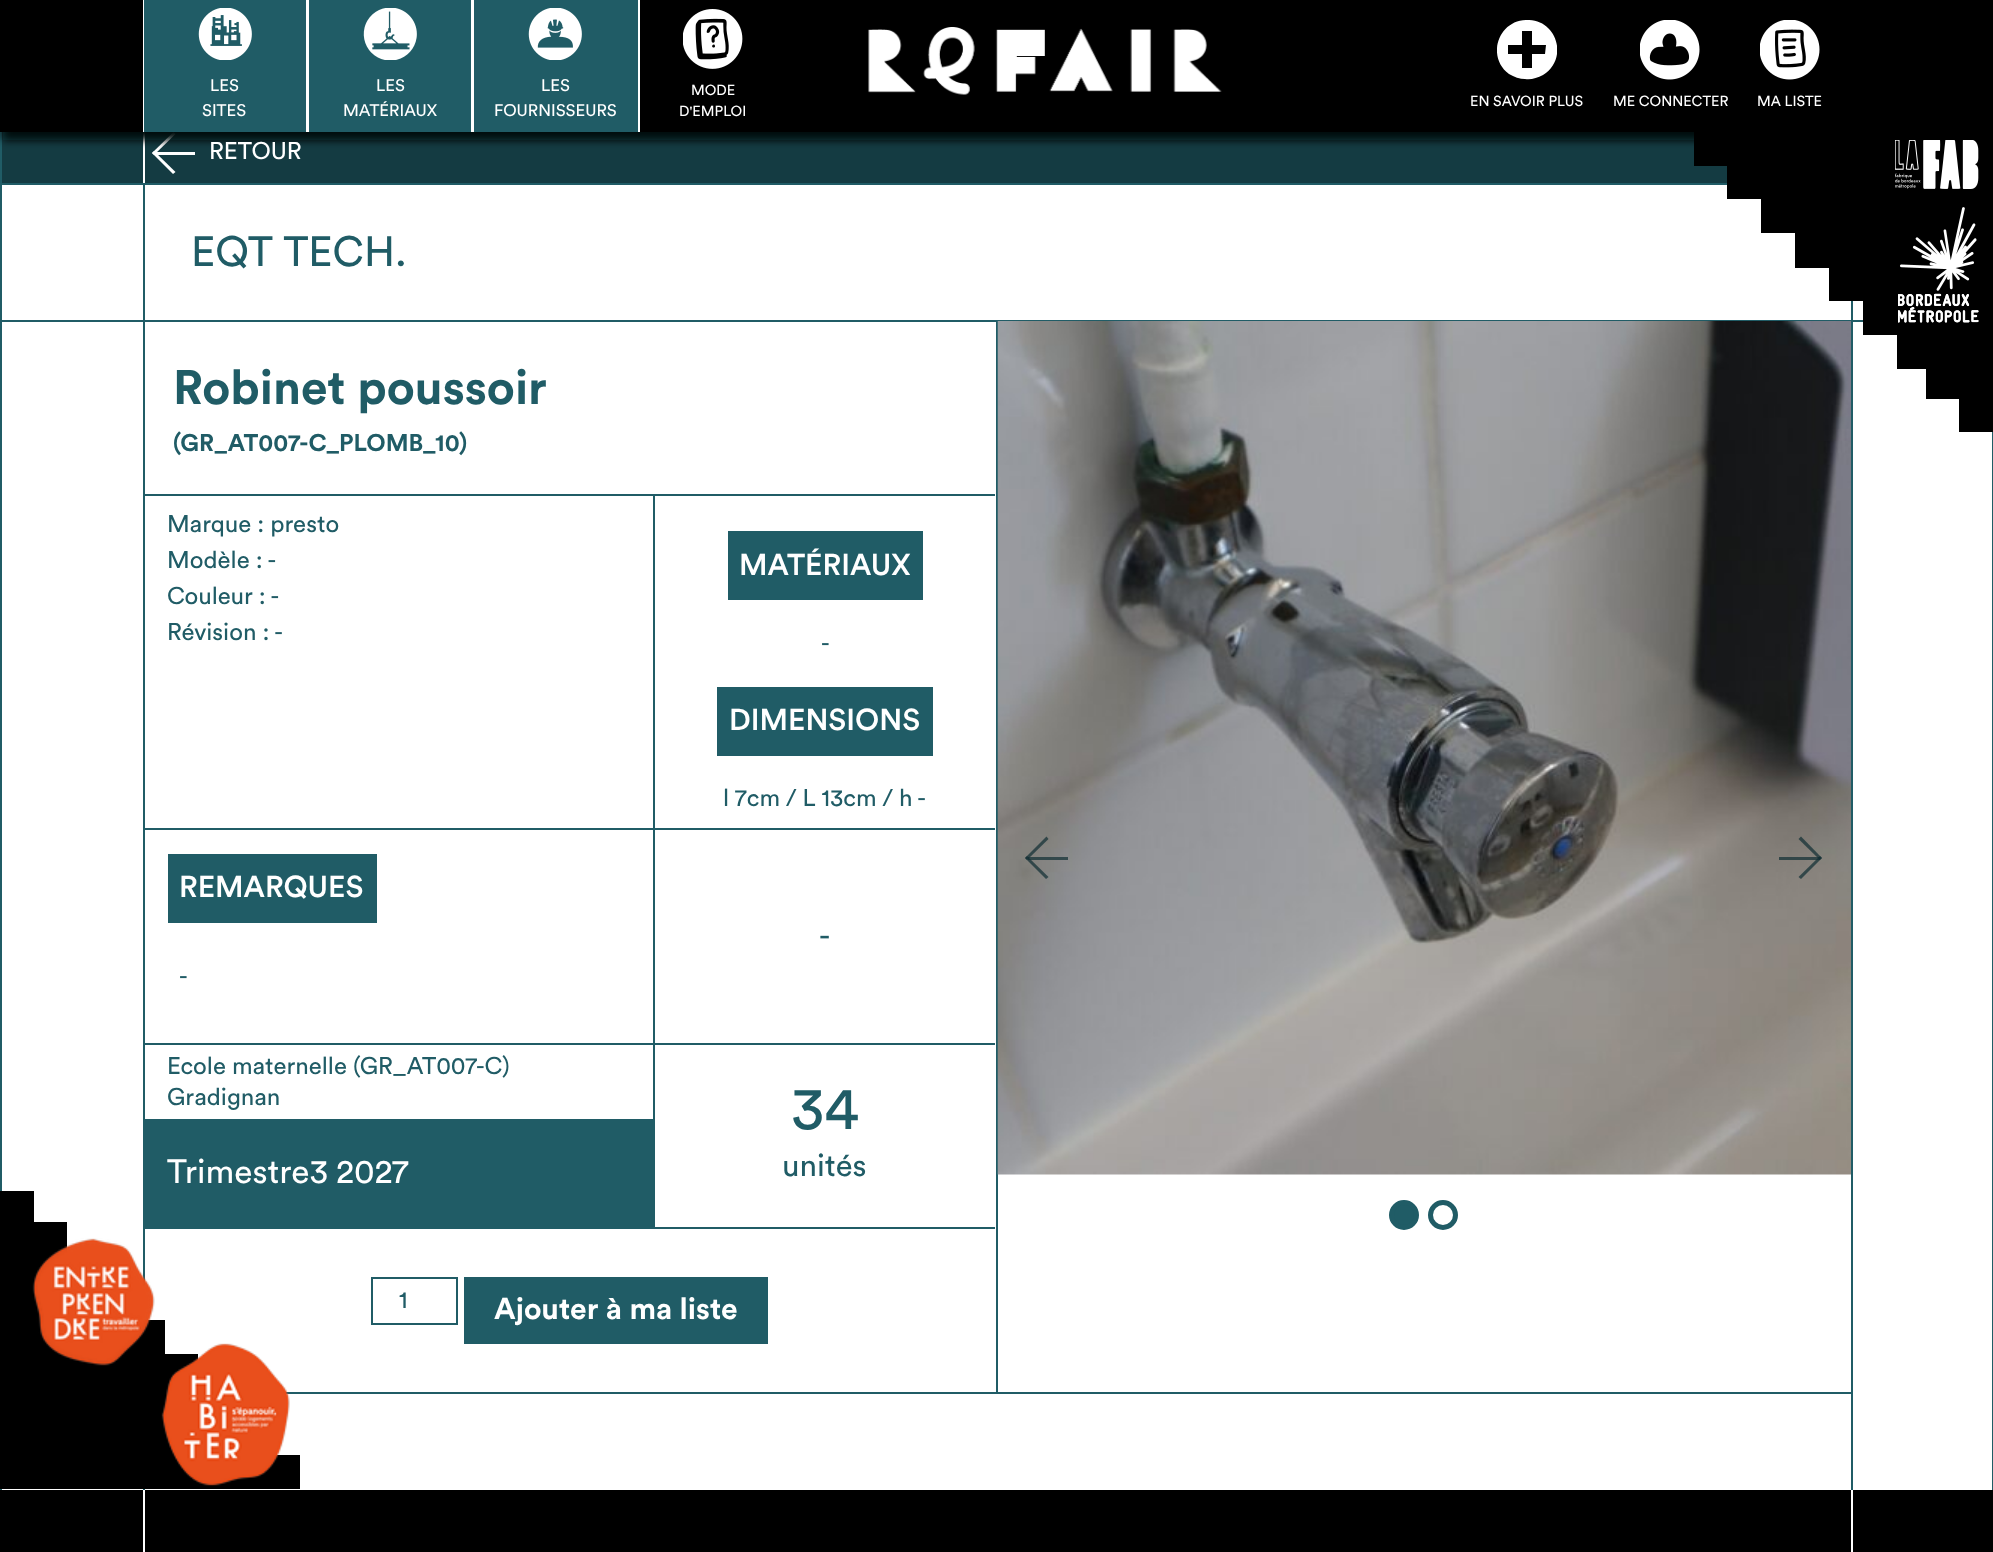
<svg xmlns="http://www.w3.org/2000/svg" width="1993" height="1552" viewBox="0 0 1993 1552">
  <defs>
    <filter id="blur1" x="-50%" y="-200%" width="200%" height="500%"><feGaussianBlur stdDeviation="5"/></filter>
    <filter id="blur2" x="-50%" y="-200%" width="200%" height="500%"><feGaussianBlur stdDeviation="4"/></filter>
    <clipPath id="clip1"><rect x="1497" y="20" width="60" height="60"/></clipPath>
    <clipPath id="clip2"><rect x="0" y="1191" width="300" height="299"/></clipPath>
  </defs>
  <rect width="100%" height="100%" fill="#ffffff"/>
  <rect x="0" y="132" width="2" height="1358" fill="#205c66"/>
  <rect x="2" y="132" width="1725" height="51" fill="#143b42"/>
  <rect x="143" y="132" width="2" height="51" fill="#ffffff"/>
  <path d="M173 174L152 153L154 151L175.5 172Z" fill="#ffffff"/>
  <path d="M154 155L152 153L173.5 132L175.5 134Z" fill="#ffffff"/>
  <rect x="155" y="152" width="40" height="3" fill="#ffffff"/>
  <rect x="0" y="5" width="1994" height="132" fill="#000000" fill-opacity="0.25" filter="url(#blur1)"/>
  <rect x="3" y="86" width="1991" height="54" fill="#050f11" filter="url(#blur2)"/>
  <rect x="0" y="0" width="1993" height="132" fill="#000000"/>
  <rect x="306" y="0" width="3" height="132" fill="#ffffff"/>
  <rect x="143" y="0" width="1" height="132" fill="#ffffff"/>
  <rect x="144" y="0" width="162" height="132" fill="#205c66"/>
  <image x="198" y="8" width="54" height="52" href="img1.png"/>
  <text x="210" y="91" font-family="Circular" font-size="16.75" fill="#ffffff">LES</text>
  <text x="202" y="116" font-family="Circular" font-size="16.75" fill="#ffffff">SITES</text>
  <rect x="471" y="0" width="3" height="132" fill="#ffffff"/>
  <rect x="309" y="0" width="162" height="132" fill="#205c66"/>
  <image x="363" y="8" width="54" height="52" href="img2.png"/>
  <text x="376" y="91" font-family="Circular" font-size="16.75" fill="#ffffff">LES</text>
  <text x="343" y="116" font-family="Circular" font-size="16.75" fill="#ffffff">MATÉRIAUX</text>
  <rect x="638" y="0" width="2" height="132" fill="#ffffff"/>
  <rect x="474" y="0" width="164" height="132" fill="#205c66"/>
  <image x="528" y="8" width="54" height="52" href="img3.png"/>
  <text x="541" y="91" font-family="Circular" font-size="16.75" fill="#ffffff">LES</text>
  <text x="494" y="116" font-family="Circular" font-size="16.75" fill="#ffffff">FOURNISSEURS</text>
  <image x="683" y="9" width="60" height="60" href="img4.png"/>
  <text x="691" y="95" font-family="Circular" font-size="14.5" fill="#ffffff">MODE</text>
  <text x="679" y="116" font-family="Circular" font-size="14.5" fill="#ffffff">D'EMPLOI</text>
  <image x="868" y="27" width="354" height="68" href="img5.png"/>
  <g clip-path="url(#clip1)">
    <path d="M1527 20C1498 20 1486 57 1509 74C1514 77 1520 79 1525 79C1531 80 1537 78 1543 75C1569 59 1557 19 1527 20ZM1545 54H1532V68H1522V54H1508V45H1522V31H1532V45H1546Z" fill="#ffffff"/>
  </g>
  <text x="1470" y="106" font-family="Circular" font-size="14.5" fill="#ffffff">EN SAVOIR PLUS</text>
  <image x="1640" y="20" width="60" height="60" href="img6.png"/>
  <text x="1613" y="106" font-family="Circular" font-size="14.5" fill="#ffffff">ME CONNECTER</text>
  <image x="1760" y="20" width="60" height="60" href="img7.png"/>
  <text x="1757" y="106" font-family="Circular" font-size="14.5" fill="#ffffff">MA LISTE</text>
  <rect x="2" y="183" width="1725" height="2" fill="#205c66"/>
  <rect x="2" y="320" width="1861" height="2" fill="#205c66"/>
  <rect x="1851" y="301" width="2" height="19" fill="#205c66"/>
  <rect x="1851" y="321" width="2" height="1073" fill="#205c66"/>
  <rect x="996" y="321" width="2" height="1071" fill="#205c66"/>
  <image x="997" y="321" width="854" height="854" href="img10.png"/>
  <path d="M1993 132H1694V166H1727V199H1761V233H1795V268H1829V301H1863V335H1897V369H1926V399H1959V432H1993Z" fill="#000000"/>
  <image x="1895" y="140" width="84" height="49" href="img8.png"/>
  <image x="1898" y="207" width="81" height="116" href="img9.png"/>
  <rect x="1992" y="432" width="1" height="1058" fill="#205c66"/>
  <text x="209" y="159" font-family="Circular" font-size="24" fill="#ffffff">RETOUR</text>
  <rect x="143" y="185" width="2" height="135" fill="#205c66"/>
  <text x="191" y="266" font-family="Circular" font-size="42" fill="#205c66">EQT TECH.</text>
  <rect x="285" y="1392" width="1568" height="2" fill="#205c66"/>
  <rect x="143" y="321" width="2" height="965" fill="#205c66"/>
  <rect x="144" y="494" width="851" height="2" fill="#205c66"/>
  <text x="173" y="404" font-family="Circular" font-size="48" font-weight="bold" fill="#205c66">Robinet poussoir</text>
  <text x="173" y="451" font-family="Circular" font-size="24" font-weight="bold" fill="#205c66">(GR_AT007-C_PLOMB_10)</text>
  <rect x="653" y="495" width="2" height="549" fill="#205c66"/>
  <rect x="144" y="828" width="851" height="2" fill="#205c66"/>
  <text x="167" y="532" font-family="Circular" font-size="24" fill="#205c66">Marque : presto</text>
  <text x="167" y="568" font-family="Circular" font-size="24" fill="#205c66">Modèle : -</text>
  <text x="167" y="604" font-family="Circular" font-size="24" fill="#205c66">Couleur : -</text>
  <text x="167" y="640" font-family="Circular" font-size="24" fill="#205c66">Révision : -</text>
  <rect x="728" y="531" width="195" height="69" fill="#205c66"/>
  <text x="739" y="575" font-family="Circular" font-size="30" font-weight="500" fill="#ffffff">MATÉRIAUX</text>
  <text x="821" y="651" font-family="Circular" font-size="24" fill="#205c66">-</text>
  <rect x="717" y="687" width="216" height="69" fill="#205c66"/>
  <text x="729" y="730" font-family="Circular" font-size="30" font-weight="500" fill="#ffffff">DIMENSIONS</text>
  <text x="723" y="806" font-family="Circular" font-size="24" fill="#205c66">l 7cm / L 13cm / h -</text>
  <rect x="144" y="1043" width="510" height="2" fill="#205c66"/>
  <rect x="168" y="854" width="209" height="69" fill="#205c66"/>
  <text x="179" y="897" font-family="Circular" font-size="30" font-weight="500" fill="#ffffff">REMARQUES</text>
  <text x="179" y="984" font-family="Circular" font-size="24" fill="#205c66">-</text>
  <rect x="653" y="1044" width="2" height="183" fill="#205c66"/>
  <rect x="654" y="1043" width="341" height="2" fill="#205c66"/>
  <text x="819" y="946" font-family="Circular" font-size="31" fill="#205c66">-</text>
  <text x="167" y="1074" font-family="Circular" font-size="24" fill="#205c66">Ecole maternelle (GR_AT007-C)</text>
  <text x="167" y="1105" font-family="Circular" font-size="24" fill="#205c66">Gradignan</text>
  <rect x="145" y="1119" width="508" height="108" fill="#205c66"/>
  <text x="167" y="1183" font-family="Circular" font-size="33.5" fill="#ffffff">Trimestre3 2027</text>
  <text x="791" y="1129" font-family="Circular" font-size="60" fill="#205c66">34</text>
  <text x="782" y="1176" font-family="Circular" font-size="31" fill="#205c66">unités</text>
  <rect x="144" y="1227" width="851" height="2" fill="#205c66"/>
  <rect x="372" y="1278" width="85" height="46" fill="none" stroke="#205c66" stroke-width="2"/>
  <text x="399" y="1308" font-family="Circular" font-size="24" fill="#205c66">1</text>
  <rect x="464" y="1277" width="304" height="67" fill="#205c66"/>
  <text x="494" y="1319" font-family="Circular" font-size="30" font-weight="bold" fill="#ffffff">Ajouter à ma liste</text>
  <path d="M1046 879L1025 858L1027 856L1048.5 877Z" fill="#102e33" fill-opacity="0.7"/>
  <path d="M1027 860L1025 858L1046.5 836.5L1048.5 839Z" fill="#102e33" fill-opacity="0.7"/>
  <rect x="1028" y="857" width="40" height="3" fill="#102e33" fill-opacity="0.7"/>
  <path d="M1801 836.5L1822 858L1820 860L1798.5 839Z" fill="#102e33" fill-opacity="0.7"/>
  <path d="M1820 856L1822 858L1801 879L1798.5 877Z" fill="#102e33" fill-opacity="0.7"/>
  <rect x="1779" y="857" width="41" height="3" fill="#102e33" fill-opacity="0.7"/>
  <circle cx="1404" cy="1215" r="12.5" fill="#205c66" stroke="#205c66" stroke-width="5"/>
  <circle cx="1443" cy="1215" r="12.5" fill="none" stroke="#205c66" stroke-width="5"/>
  <rect x="1851" y="1394" width="2" height="96" fill="#205c66"/>
  <rect x="143" y="1489" width="2" height="1" fill="#205c66"/>
  <rect x="0" y="1490" width="1993" height="62" fill="#000000"/>
  <g clip-path="url(#clip2)">
    <path d="M0 1489H300V1455H267V1422H233V1388H198V1354H165V1320H131V1286H97V1252H67V1222H34V1190H0Z" fill="#000000"/>
  </g>
  <image x="32" y="1238" width="123" height="128" href="img11.png"/>
  <image x="161" y="1343" width="129" height="143" href="img12.png"/>
  <rect x="1851" y="1490" width="2" height="62" fill="#ffffff"/>
  <rect x="143" y="1490" width="2" height="62" fill="#ffffff"/>
</svg>
